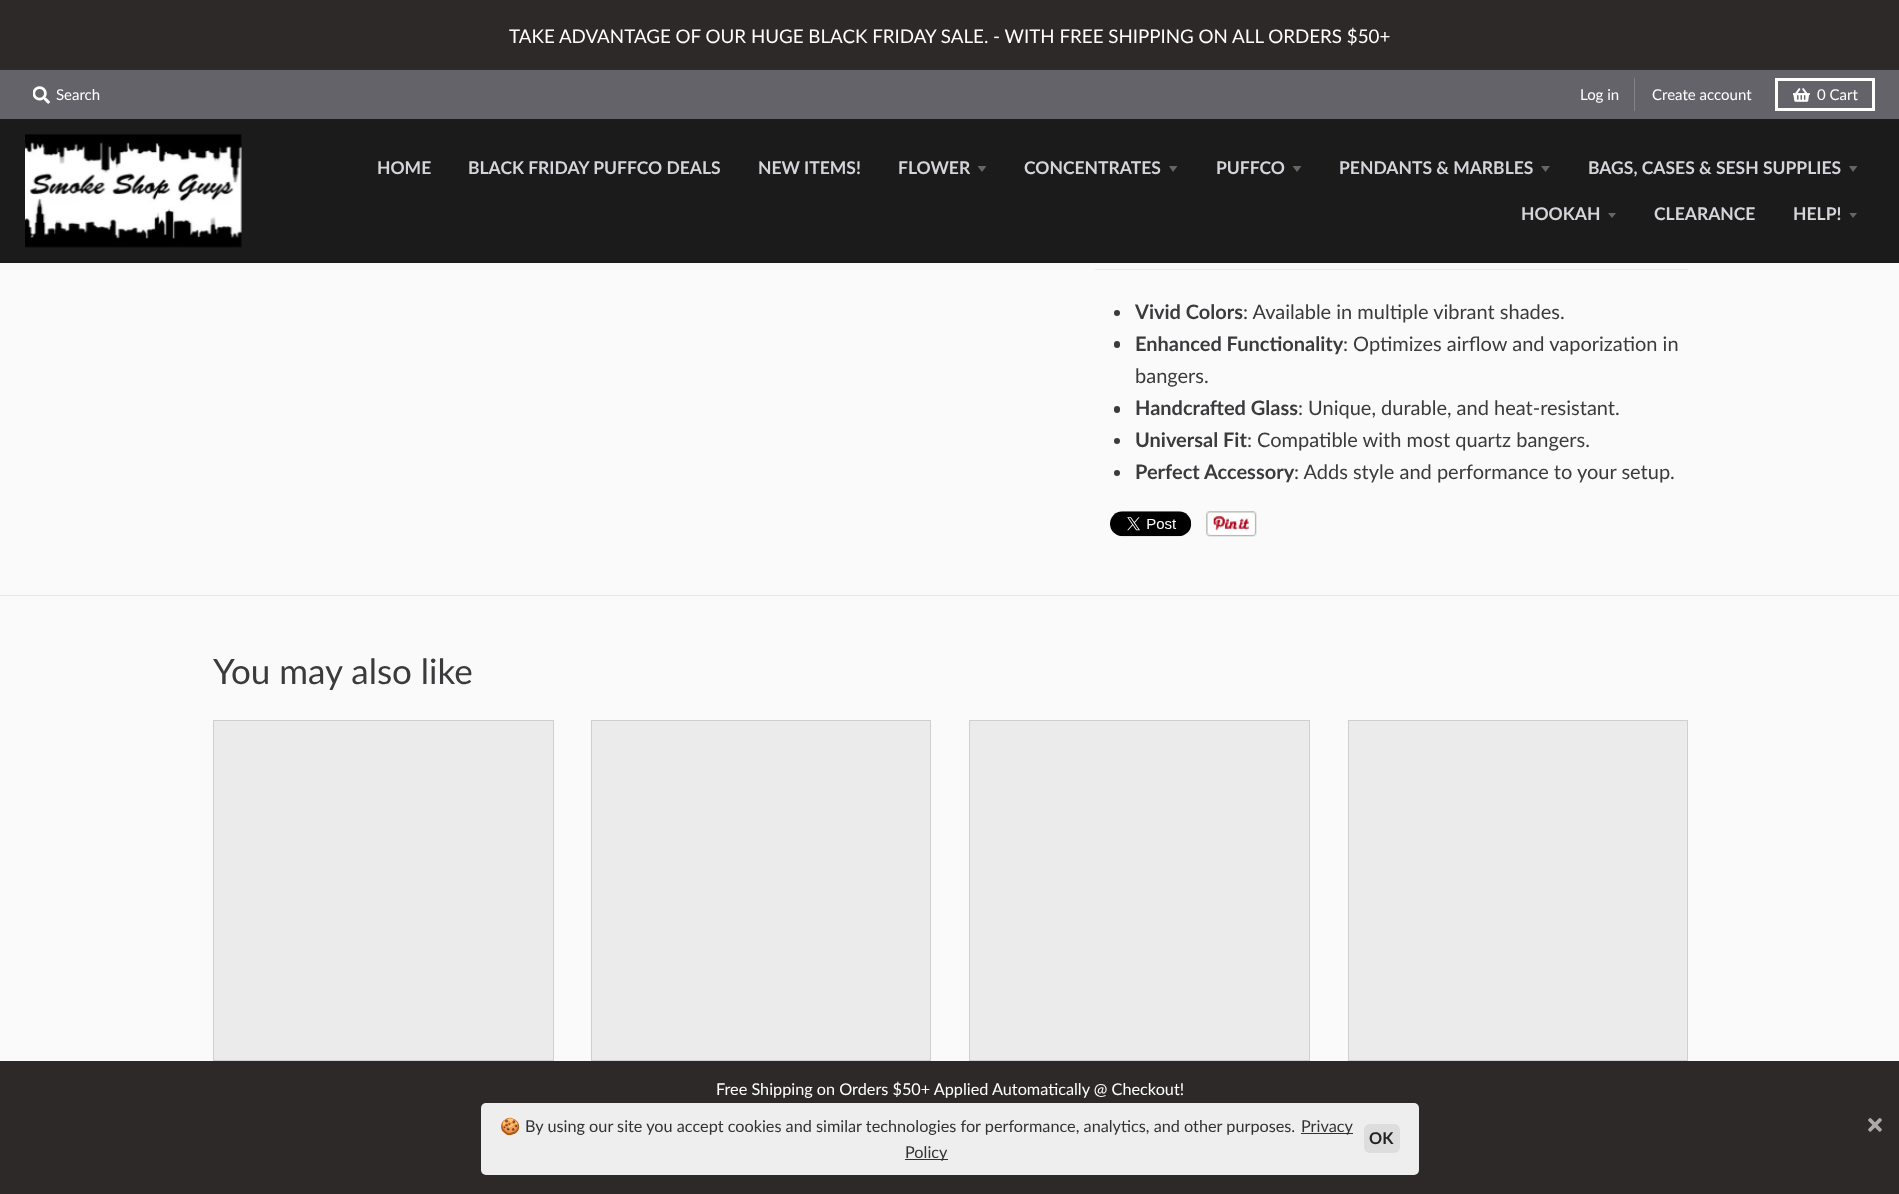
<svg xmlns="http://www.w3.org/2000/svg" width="1899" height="1194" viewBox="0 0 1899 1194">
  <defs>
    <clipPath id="clip1"><rect x="1608" y="213" width="10" height="6"/></clipPath>
    <clipPath id="clip2"><rect x="1849" y="213" width="10" height="6"/></clipPath>
  </defs>
  <rect width="100%" height="100%" fill="#fafafa"/>
  <rect x="0" y="0" width="1899" height="70" fill="#2d2929"/>
  <text x="509" y="43" font-family="Lato" font-size="18.75" fill="#ffffff">TAKE ADVANTAGE OF OUR HUGE BLACK FRIDAY SALE. - WITH FREE SHIPPING ON ALL ORDERS $50+</text>
  <rect x="0" y="1061" width="1899" height="133" fill="#2d2929"/>
  <text x="716" y="1095" font-family="Lato" font-size="16.25" fill="#ffffff">Free Shipping on Orders $50+ Applied Automatically @ Checkout!</text>
  <image x="1868" y="1118" width="14" height="14" href="img1.png"/>
  <rect x="0" y="70" width="1899" height="49" fill="#65636a"/>
  <image x="33" y="86" width="17" height="18" href="img2.png"/>
  <text x="56" y="100" font-family="Lato" font-size="15" fill="#ffffff">Search</text>
  <rect x="1634" y="78" width="1" height="33" fill="#838287"/>
  <text x="1580" y="100" font-family="Lato" font-size="15" fill="#ffffff">Log in</text>
  <text x="1652" y="100" font-family="Lato" font-size="15" fill="#ffffff">Create account</text>
  <rect x="1776.5" y="79.5" width="97" height="30" fill="none" stroke="#ffffff" stroke-width="3"/>
  <image x="1793" y="88" width="17" height="14" href="img3.png"/>
  <text x="1817" y="100" font-family="Lato" font-size="15" fill="#ffffff">0 Cart</text>
  <rect x="0" y="119" width="1899" height="144" fill="#1b1b1b"/>
  <image x="25" y="134" width="217" height="114" href="img4.png"/>
  <text x="377" y="174" font-family="Lato" font-size="17.5" font-weight="bold" fill="#d6d4da">HOME</text>
  <text x="468" y="174" font-family="Lato" font-size="17.5" font-weight="bold" fill="#d6d4da">BLACK FRIDAY PUFFCO DEALS</text>
  <text x="758" y="174" font-family="Lato" font-size="17.5" font-weight="bold" fill="#d6d4da">NEW ITEMS!</text>
  <text x="898" y="174" font-family="Lato" font-size="17.5" font-weight="bold" fill="#d6d4da">FLOWER</text>
  <path d="M977.5 166L982 172L986.5 166Z" fill="#666567"/>
  <text x="1024" y="174" font-family="Lato" font-size="17.5" font-weight="bold" fill="#d6d4da">CONCENTRATES</text>
  <path d="M1169 166L1173 172L1177.5 166Z" fill="#666567"/>
  <text x="1216" y="174" font-family="Lato" font-size="17.5" font-weight="bold" fill="#d6d4da">PUFFCO</text>
  <path d="M1292.5 166L1297 172L1301.5 166Z" fill="#666567"/>
  <text x="1339" y="174" font-family="Lato" font-size="17.5" font-weight="bold" fill="#d6d4da">PENDANTS &amp; MARBLES</text>
  <path d="M1541 166L1545.5 172L1550 166Z" fill="#666567"/>
  <text x="1588" y="174" font-family="Lato" font-size="17.5" font-weight="bold" fill="#d6d4da">BAGS, CASES &amp; SESH SUPPLIES</text>
  <path d="M1849 166L1853 172L1857.5 166Z" fill="#666567"/>
  <text x="1521" y="220" font-family="Lato" font-size="17.5" font-weight="bold" fill="#d6d4da">HOOKAH</text>
  <g clip-path="url(#clip1)">
    <path d="M1607.5 212.5L1612 218L1616.5 212.5Z" fill="#666567"/>
  </g>
  <text x="1654" y="220" font-family="Lato" font-size="17.5" font-weight="bold" fill="#d6d4da">CLEARANCE</text>
  <text x="1793" y="220" font-family="Lato" font-size="17.5" font-weight="bold" fill="#d6d4da">HELP!</text>
  <g clip-path="url(#clip2)">
    <path d="M1849 212.5L1853 218L1857.5 212.5Z" fill="#666567"/>
  </g>
  <rect x="0" y="595" width="1899" height="1" fill="#e6e6e7"/>
  <rect x="1095" y="269" width="593" height="1" fill="#ebebeb"/>
  <circle cx="1117" cy="313" r="3" fill="#3b3a3d"/>
  <text x="1135" y="319" font-family="Lato" font-size="20" font-weight="bold" fill="#3b3a3d">Vivid Colors</text>
  <text x="1243" y="319" font-family="Lato" font-size="20" fill="#3b3a3d">: Available in multiple vibrant shades.</text>
  <rect x="1114" y="341" width="6" height="7" rx="3" fill="#3b3a3d"/>
  <text x="1135" y="351" font-family="Lato" font-size="20" font-weight="bold" fill="#3b3a3d">Enhanced Functionality</text>
  <text x="1343" y="351" font-family="Lato" font-size="20" fill="#3b3a3d">: Optimizes airflow and vaporization in</text>
  <text x="1135" y="383" font-family="Lato" font-size="20" fill="#3b3a3d">bangers.</text>
  <rect x="1114" y="406" width="6" height="7" rx="3" fill="#3b3a3d"/>
  <text x="1135" y="415" font-family="Lato" font-size="20" font-weight="bold" fill="#3b3a3d">Handcrafted Glass</text>
  <text x="1298" y="415" font-family="Lato" font-size="20" fill="#3b3a3d">: Unique, durable, and heat-resistant.</text>
  <circle cx="1117" cy="441" r="3" fill="#3b3a3d"/>
  <text x="1135" y="447" font-family="Lato" font-size="20" font-weight="bold" fill="#3b3a3d">Universal Fit</text>
  <text x="1247" y="447" font-family="Lato" font-size="20" fill="#3b3a3d">: Compatible with most quartz bangers.</text>
  <circle cx="1117" cy="473" r="3" fill="#3b3a3d"/>
  <text x="1135" y="479" font-family="Lato" font-size="20" font-weight="bold" fill="#3b3a3d">Perfect Accessory</text>
  <text x="1294" y="479" font-family="Lato" font-size="20" fill="#3b3a3d">: Adds style and performance to your setup.</text>
  <image x="1110" y="511" width="82" height="26" href="img5.png"/>
  <image x="1206" y="511" width="51" height="26" href="img6.png"/>
  <text x="213" y="684" font-family="Lato" font-size="35" fill="#3b3a3d">You may also like</text>
  <rect x="213.5" y="720.5" width="340" height="340" fill="#ebebeb" stroke="#cfcfd0"/>
  <rect x="591.5" y="720.5" width="339" height="340" fill="#ebebeb" stroke="#cfcfd0"/>
  <rect x="969.5" y="720.5" width="340" height="340" fill="#ebebeb" stroke="#cfcfd0"/>
  <rect x="1348.5" y="720.5" width="339" height="340" fill="#ebebeb" stroke="#cfcfd0"/>
  <rect x="481" y="1103" width="938" height="72" rx="5" fill="#eeeeee"/>
  <text x="500" y="1132" font-family="Noto Color Emoji" font-size="16.25" fill="#323232">🍪</text>
  <text x="525" y="1132" font-family="Lato" font-size="16.25" fill="#323232">By using our site you accept cookies and similar technologies for performance, analytics, and other purposes.</text>
  <rect x="1301" y="1133" width="52" height="1" fill="#323232"/>
  <text x="1301" y="1132" font-family="Lato" font-size="16.25" fill="#323232">Privacy</text>
  <rect x="1364" y="1124" width="36" height="29" rx="6" fill="#dddddd"/>
  <text x="1369" y="1144" font-family="Lato" font-size="16.25" font-weight="bold" fill="#222222">OK</text>
  <rect x="905" y="1159" width="43" height="1" fill="#323232"/>
  <text x="905" y="1158" font-family="Lato" font-size="16.25" fill="#323232">Policy</text>
</svg>
